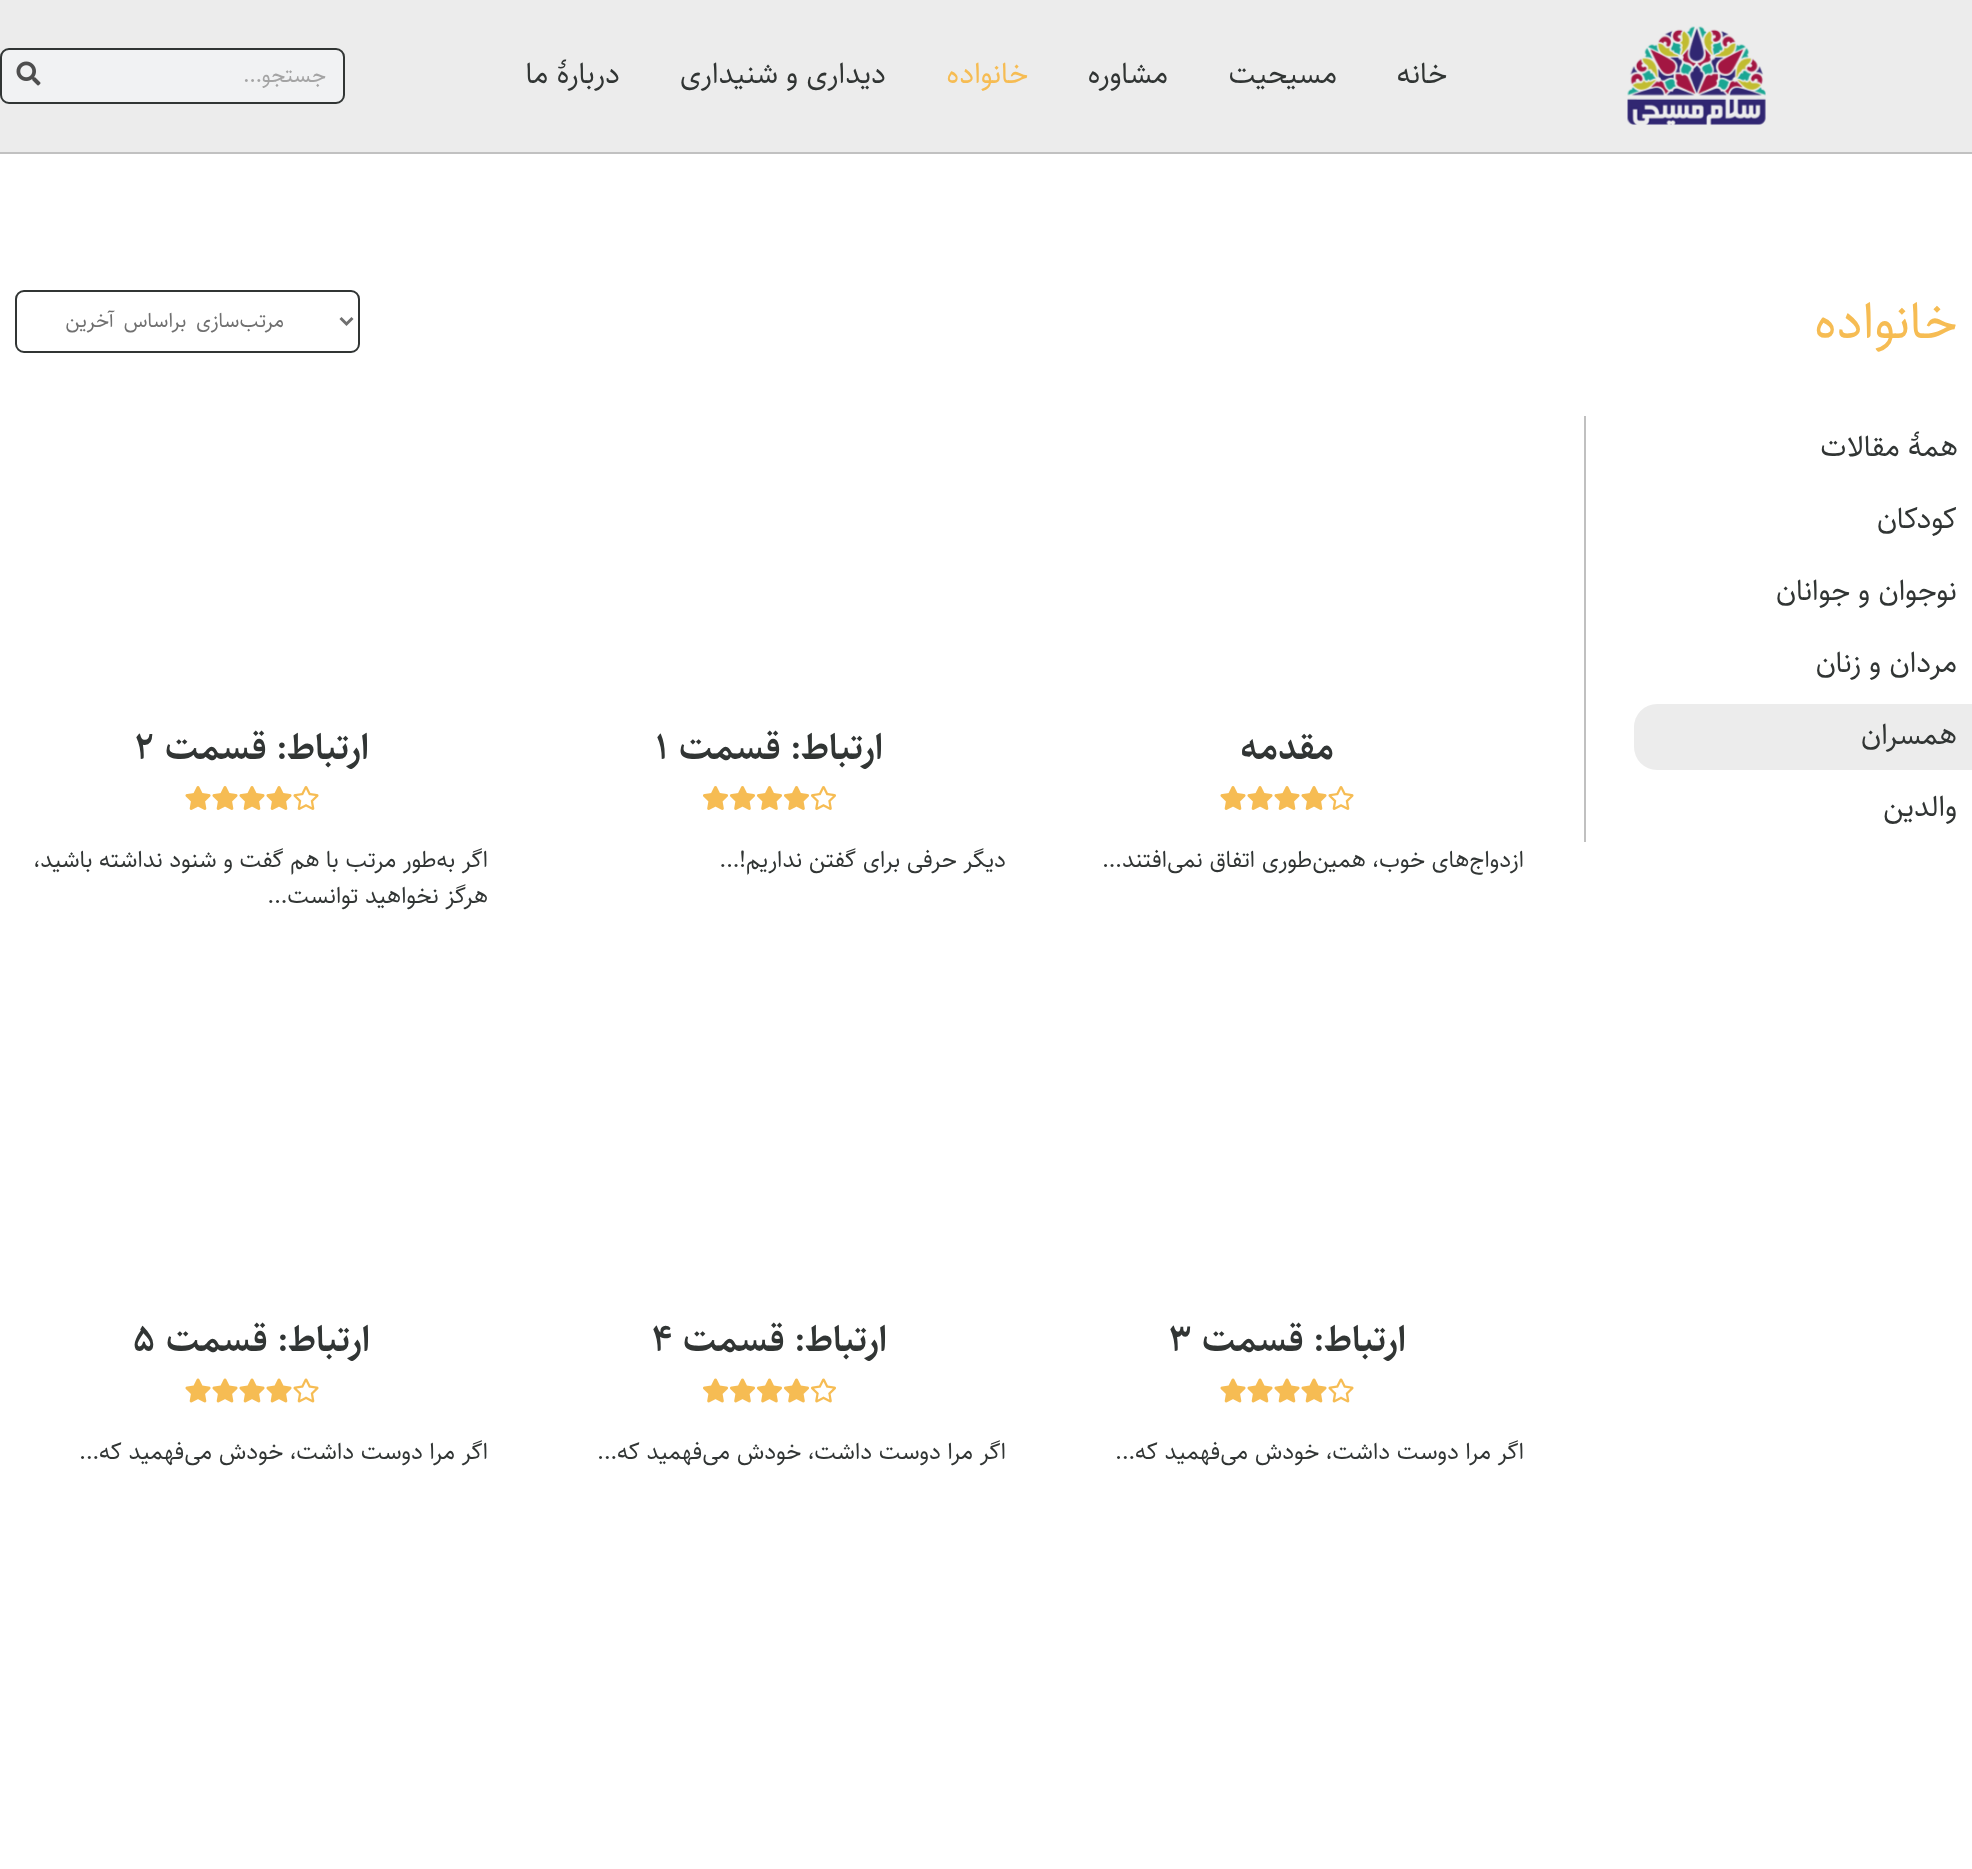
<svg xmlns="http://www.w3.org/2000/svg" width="1972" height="1869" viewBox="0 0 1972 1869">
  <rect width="100%" height="100%" fill="#ffffff"/>
  <rect x="0" y="152" width="1972" height="2" fill="#c1c1c1"/>
  <rect x="0" y="0" width="1972" height="152" fill="#ececec"/>
  <image x="1627" y="26" width="139" height="99" href="img1.png"/>
  <text x="1447" y="83" font-family="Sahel" font-size="30" direction="rtl" fill="#313534">خانه</text>
  <text x="1337" y="83" font-family="Sahel" font-size="30" direction="rtl" fill="#313534">مسیحیت</text>
  <text x="1168" y="83" font-family="Sahel" font-size="30" direction="rtl" fill="#313534">مشاوره</text>
  <text x="1028" y="83" font-family="Sahel" font-size="30" direction="rtl" fill="#f6bc53">خانواده</text>
  <text x="886" y="83" font-family="Sahel" font-size="30" direction="rtl" fill="#313534">دیداری و شنیداری</text>
  <text x="620" y="83" font-family="Sahel" font-size="30" direction="rtl" fill="#313534">دربارهٔ ما</text>
  <rect x="1" y="49" width="343" height="54" rx="8" fill="#f1f2f3" stroke="#313534" stroke-width="2"/>
  <text x="326" y="82" font-family="Sahel" font-size="22.5" direction="rtl" fill="#a4a4a4">جستجو...</text>
  <image x="16" y="61" width="25" height="25" href="img2.png"/>
  <text x="1957" y="338" font-family="Sahel" font-size="52.5" direction="rtl" fill="#f6bc53">خانواده</text>
  <rect x="1584" y="416" width="2" height="426" fill="#c0c0c0"/>
  <text x="1958" y="456" font-family="Sahel" font-size="30" direction="rtl" fill="#313534">همهٔ مقالات</text>
  <text x="1957" y="528" font-family="Sahel" font-size="30" direction="rtl" fill="#313534">کودکان</text>
  <text x="1957" y="600" font-family="Sahel" font-size="30" direction="rtl" fill="#313534">نوجوان و جوانان</text>
  <text x="1957" y="672" font-family="Sahel" font-size="30" direction="rtl" fill="#313534">مردان و زنان</text>
  <rect x="1634" y="704" width="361" height="66" rx="23" fill="#ececec"/>
  <text x="1957" y="744" font-family="Sahel" font-size="30" direction="rtl" fill="#313534">همسران</text>
  <text x="1957" y="816" font-family="Sahel" font-size="30" direction="rtl" fill="#313534">والدین</text>
  <rect x="16" y="291" width="343" height="61" rx="8" fill="none" stroke="#313534" stroke-width="2"/>
  <path d="M340.5 318L346.5 324L352.5 318" fill="none" stroke="#707070" stroke-width="3"/>
  <text x="284" y="327" word-spacing="4" font-family="Sahel" font-size="21" direction="rtl" fill="#707070">مرتب‌سازی براساس آخرین</text>
  <text x="1334" y="759" font-family="Sahel" font-size="37.5" font-weight="600" direction="rtl" fill="#313534">مقدمه</text>
  <image x="1328" y="786" width="26" height="24" href="img3.png"/>
  <image x="1301" y="786" width="26" height="24" href="img4.png"/>
  <image x="1274" y="786" width="26" height="24" href="img4.png"/>
  <image x="1247" y="786" width="26" height="24" href="img4.png"/>
  <image x="1220" y="786" width="26" height="24" href="img4.png"/>
  <text x="1524" y="867" font-family="Sahel" font-size="24" direction="rtl" fill="#313534">ازدواج‌های خوب، همین‌طوری اتفاق نمی‌افتند...</text>
  <text x="883" y="759" font-family="Sahel" font-size="37.5" font-weight="600" direction="rtl" fill="#313534">ارتباط: قسمت</text>
  <text x="655" y="759" font-family="Sahel" font-size="37.5" font-weight="600" fill="#313534">۱</text>
  <image x="811" y="786" width="25" height="24" href="img5.png"/>
  <image x="784" y="786" width="25" height="24" href="img6.png"/>
  <image x="757" y="786" width="25" height="24" href="img6.png"/>
  <image x="730" y="786" width="25" height="24" href="img6.png"/>
  <image x="703" y="786" width="25" height="24" href="img6.png"/>
  <text x="1006" y="867" font-family="Sahel" font-size="24" direction="rtl" fill="#313534">دیگر حرفی برای گفتن نداریم!...</text>
  <text x="369" y="759" font-family="Sahel" font-size="37.5" font-weight="600" direction="rtl" fill="#313534">ارتباط: قسمت</text>
  <text x="134" y="759" font-family="Sahel" font-size="37.5" font-weight="600" fill="#313534">۲</text>
  <image x="293" y="786" width="26" height="24" href="img3.png"/>
  <image x="266" y="786" width="26" height="24" href="img4.png"/>
  <image x="239" y="786" width="26" height="24" href="img4.png"/>
  <image x="212" y="786" width="26" height="24" href="img4.png"/>
  <image x="185" y="786" width="26" height="24" href="img4.png"/>
  <text x="488" y="867" font-family="Sahel" font-size="24" direction="rtl" fill="#313534">اگر به‌طور مرتب با هم گفت و شنود نداشته باشید،</text>
  <text x="488" y="903" font-family="Sahel" font-size="24" direction="rtl" fill="#313534">هرگز نخواهید توانست...</text>
  <text x="1406" y="1351" font-family="Sahel" font-size="37.5" font-weight="600" direction="rtl" fill="#313534">ارتباط: قسمت</text>
  <text x="1168" y="1351" font-family="Sahel" font-size="37.5" font-weight="600" fill="#313534">۳</text>
  <image x="1328" y="1378" width="26" height="25" href="img7.png"/>
  <image x="1301" y="1378" width="26" height="25" href="img8.png"/>
  <image x="1274" y="1378" width="26" height="25" href="img8.png"/>
  <image x="1247" y="1378" width="26" height="25" href="img8.png"/>
  <image x="1220" y="1378" width="26" height="25" href="img8.png"/>
  <text x="1524" y="1459" font-family="Sahel" font-size="24" direction="rtl" fill="#313534">اگر مرا دوست داشت، خودش می‌فهمید که...</text>
  <text x="887" y="1351" font-family="Sahel" font-size="37.5" font-weight="600" direction="rtl" fill="#313534">ارتباط: قسمت</text>
  <text x="651" y="1351" font-family="Sahel" font-size="37.5" font-weight="600" fill="#313534">۴</text>
  <image x="811" y="1378" width="25" height="25" href="img9.png"/>
  <image x="784" y="1378" width="25" height="25" href="img10.png"/>
  <image x="757" y="1378" width="25" height="25" href="img10.png"/>
  <image x="730" y="1378" width="25" height="25" href="img10.png"/>
  <image x="703" y="1378" width="25" height="25" href="img10.png"/>
  <text x="1006" y="1459" font-family="Sahel" font-size="24" direction="rtl" fill="#313534">اگر مرا دوست داشت، خودش می‌فهمید که...</text>
  <text x="370" y="1351" font-family="Sahel" font-size="37.5" font-weight="600" direction="rtl" fill="#313534">ارتباط: قسمت</text>
  <text x="133" y="1351" font-family="Sahel" font-size="37.5" font-weight="600" fill="#313534">۵</text>
  <image x="293" y="1378" width="26" height="25" href="img7.png"/>
  <image x="266" y="1378" width="26" height="25" href="img8.png"/>
  <image x="239" y="1378" width="26" height="25" href="img8.png"/>
  <image x="212" y="1378" width="26" height="25" href="img8.png"/>
  <image x="185" y="1378" width="26" height="25" href="img8.png"/>
  <text x="488" y="1459" font-family="Sahel" font-size="24" direction="rtl" fill="#313534">اگر مرا دوست داشت، خودش می‌فهمید که...</text>
</svg>
